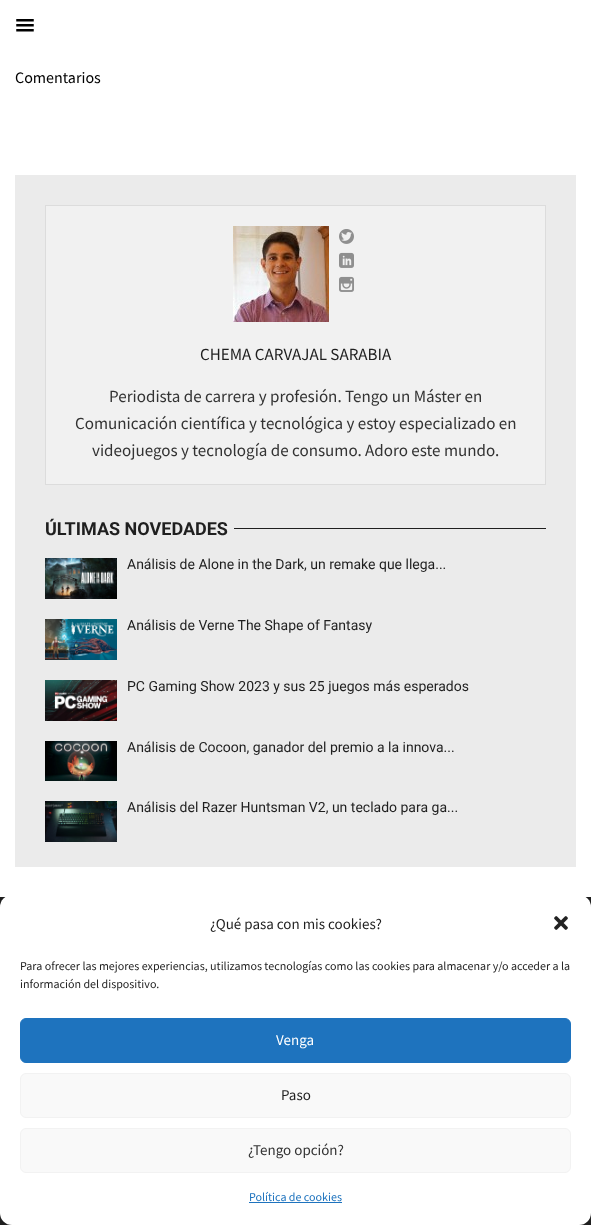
<svg xmlns="http://www.w3.org/2000/svg" width="591" height="1225" viewBox="0 0 591 1225">
  <rect width="100%" height="100%" fill="#ffffff"/>
  <image x="16" y="19" width="18" height="13" href="img1.png"/>
  <text x="15" y="83" font-family="Source Sans Pro" font-size="16" fill="#000000">Comentarios</text>
  <rect x="15" y="175" width="561" height="692" fill="#ebebeb"/>
  <rect x="45.5" y="205.5" width="500" height="279" fill="#f1f1f1" stroke="#dcdcdc"/>
  <image x="233" y="226" width="96" height="96" href="img2.png"/>
  <image x="339" y="229" width="15" height="15" href="img3.png"/>
  <image x="339" y="252" width="15" height="16" href="img4.png"/>
  <image x="339" y="276" width="15" height="16" href="img5.png"/>
  <text x="200" y="360" font-family="Source Sans Pro" font-size="17" fill="#1f1f1f">CHEMA CARVAJAL SARABIA</text>
  <text x="109" y="402" font-family="Source Sans Pro" font-size="17" fill="#333333">Periodista de carrera y profesión. Tengo un Máster en</text>
  <text x="75" y="429" font-family="Source Sans Pro" font-size="17" fill="#333333">Comunicación científica y tecnológica y estoy especializado en</text>
  <text x="92" y="456" font-family="Source Sans Pro" font-size="17" fill="#333333">videojuegos y tecnología de consumo. Adoro este mundo.</text>
  <text x="45" y="535" font-family="Roboto" font-size="18" font-weight="bold" fill="#1f1f1f">ÚLTIMAS NOVEDADES</text>
  <rect x="234" y="528" width="312" height="1" fill="#1f1f1f"/>
  <image x="45" y="558" width="72" height="41" href="img6.png"/>
  <text x="127" y="569" font-family="Roboto" font-size="14" fill="#1f1f1f">Análisis de Alone in the Dark, un remake que llega...</text>
  <image x="45" y="619" width="72" height="41" href="img7.png"/>
  <text x="127" y="630" font-family="Roboto" font-size="14" fill="#1f1f1f">Análisis de Verne The Shape of Fantasy</text>
  <image x="45" y="680" width="72" height="41" href="img8.png"/>
  <text x="127" y="691" font-family="Roboto" font-size="14" fill="#1f1f1f">PC Gaming Show 2023 y sus 25 juegos más esperados</text>
  <image x="45" y="741" width="72" height="40" href="img9.png"/>
  <text x="127" y="752" font-family="Roboto" font-size="14" fill="#1f1f1f">Análisis de Cocoon, ganador del premio a la innova...</text>
  <image x="45" y="801" width="72" height="41" href="img10.png"/>
  <text x="127" y="812" font-family="Roboto" font-size="14" fill="#1f1f1f">Análisis del Razer Huntsman V2, un teclado para ga...</text>
  <rect x="0" y="897" width="591" height="328" fill="#1f1f1f"/>
  <rect x="0" y="895" width="591" height="330" rx="12" fill="#ffffff"/>
  <text x="210" y="929" font-family="Source Sans Pro" font-size="15" fill="#1f1f1f">¿Qué pasa con mis cookies?</text>
  <image x="554" y="916" width="14" height="14" href="img11.png"/>
  <text x="20" y="970" font-family="Source Sans Pro" font-size="12" fill="#1f1f1f">Para ofrecer las mejores experiencias, utilizamos tecnologías como las cookies para almacenar y/o acceder a la</text>
  <text x="20" y="988" font-family="Source Sans Pro" font-size="12" fill="#1f1f1f">información del dispositivo.</text>
  <rect x="20.5" y="1018.5" width="550" height="44" rx="5.5" fill="#1e73be" stroke="#1e73be"/>
  <text x="276" y="1045" font-family="Source Sans Pro" font-size="15" fill="#ffffff">Venga</text>
  <rect x="20.5" y="1073.5" width="550" height="44" rx="5.5" fill="#f9f9f9" stroke="#f2f2f2"/>
  <text x="281" y="1100" font-family="Source Sans Pro" font-size="15" fill="#1f1f1f">Paso</text>
  <rect x="20.5" y="1128.5" width="550" height="44" rx="5.5" fill="#f9f9f9" stroke="#f2f2f2"/>
  <text x="248" y="1155" font-family="Source Sans Pro" font-size="15" fill="#333333">¿Tengo opción?</text>
  <text x="249" y="1201" font-family="Source Sans Pro" font-size="12" fill="#1e73be">Política de cookies</text>
  <rect x="249" y="1202" width="93" height="1" fill="#1e73be"/>
</svg>
